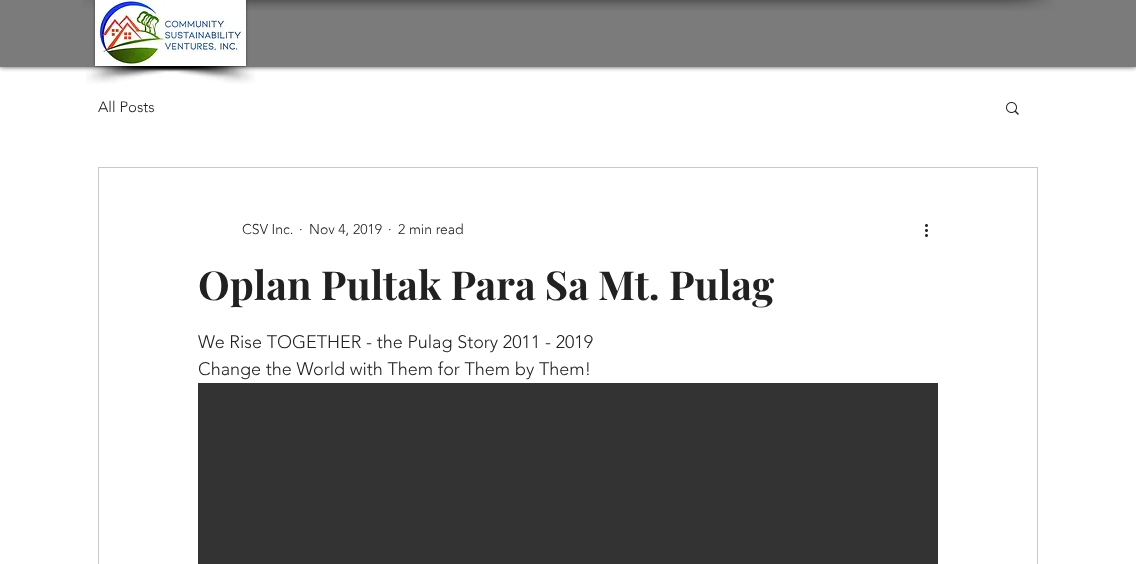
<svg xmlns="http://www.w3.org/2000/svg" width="1136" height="564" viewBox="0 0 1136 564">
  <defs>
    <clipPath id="clip1"><rect x="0" y="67" width="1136" height="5"/></clipPath>
    <filter id="blur1" x="-50%" y="-200%" width="200%" height="500%"><feGaussianBlur stdDeviation="2.5"/></filter>
    <filter id="blur2" x="-50%" y="-200%" width="200%" height="500%"><feGaussianBlur stdDeviation="1.5"/></filter>
  </defs>
  <rect width="100%" height="100%" fill="#ffffff"/>
  <rect x="0" y="0" width="1136" height="67" fill="#7b7b7b"/>
  <image x="81" y="0" width="14" height="9" href="img1.png"/>
  <image x="246" y="0" width="712" height="11" href="img2.png"/>
  <image x="958" y="0" width="97" height="11" href="img3.png"/>
  <g clip-path="url(#clip1)">
    <rect x="0" y="0" width="1136" height="67" fill="#000000" fill-opacity="0.7" filter="url(#blur1)"/>
  </g>
  <rect x="95" y="0" width="151" height="66" fill="#000000" fill-opacity="0.5" filter="url(#blur2)"/>
  <image x="95" y="0" width="151" height="66" href="img4.png"/>
  <image x="86" y="66" width="143" height="18" href="img5.png"/>
  <image x="122" y="66" width="133" height="18" href="img6.png"/>
  <text x="98" y="112" font-family="'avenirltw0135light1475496'" font-size="15" font-weight="300" fill="#212121">All Posts</text>
  <image x="1006" y="102" width="13" height="13" href="img7.png"/>
  <rect x="98.5" y="167.5" width="939" height="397" fill="none" stroke="#cbcaca"/>
  <text x="242" y="234" font-family="'avenirltw0135light1475496'" font-size="14" font-weight="300" fill="#212121">CSV Inc.</text>
  <text x="299" y="234" font-family="'avenirltw0135light1475496'" font-size="14" font-weight="300" fill="#212121">·</text>
  <text x="309" y="234" font-family="'avenirltw0135light1475496'" font-size="14" font-weight="300" fill="#212121">Nov 4, 2019</text>
  <text x="388" y="234" font-family="'avenirltw0135light1475496'" font-size="14" font-weight="300" fill="#212121">·</text>
  <text x="398" y="234" font-family="'avenirltw0135light1475496'" font-size="14" font-weight="300" fill="#212121">2 min read</text>
  <image x="925" y="224" width="3" height="13" href="img8.png"/>
  <text x="198" y="300" font-family="Playfair Display" font-size="40" font-weight="bold" fill="#212121">Oplan Pultak Para Sa Mt. Pulag</text>
  <text x="198" y="348" font-family="'avenirltw0135light1475496'" font-size="18" font-weight="300" fill="#212121">We Rise TOGETHER - the Pulag Story 2011 - 2019</text>
  <text x="198" y="375" font-family="'avenirltw0135light1475496'" font-size="18" font-weight="300" fill="#212121">Change the World with Them for Them by Them!</text>
  <rect x="198" y="383" width="740" height="181" fill="#333333"/>
</svg>
